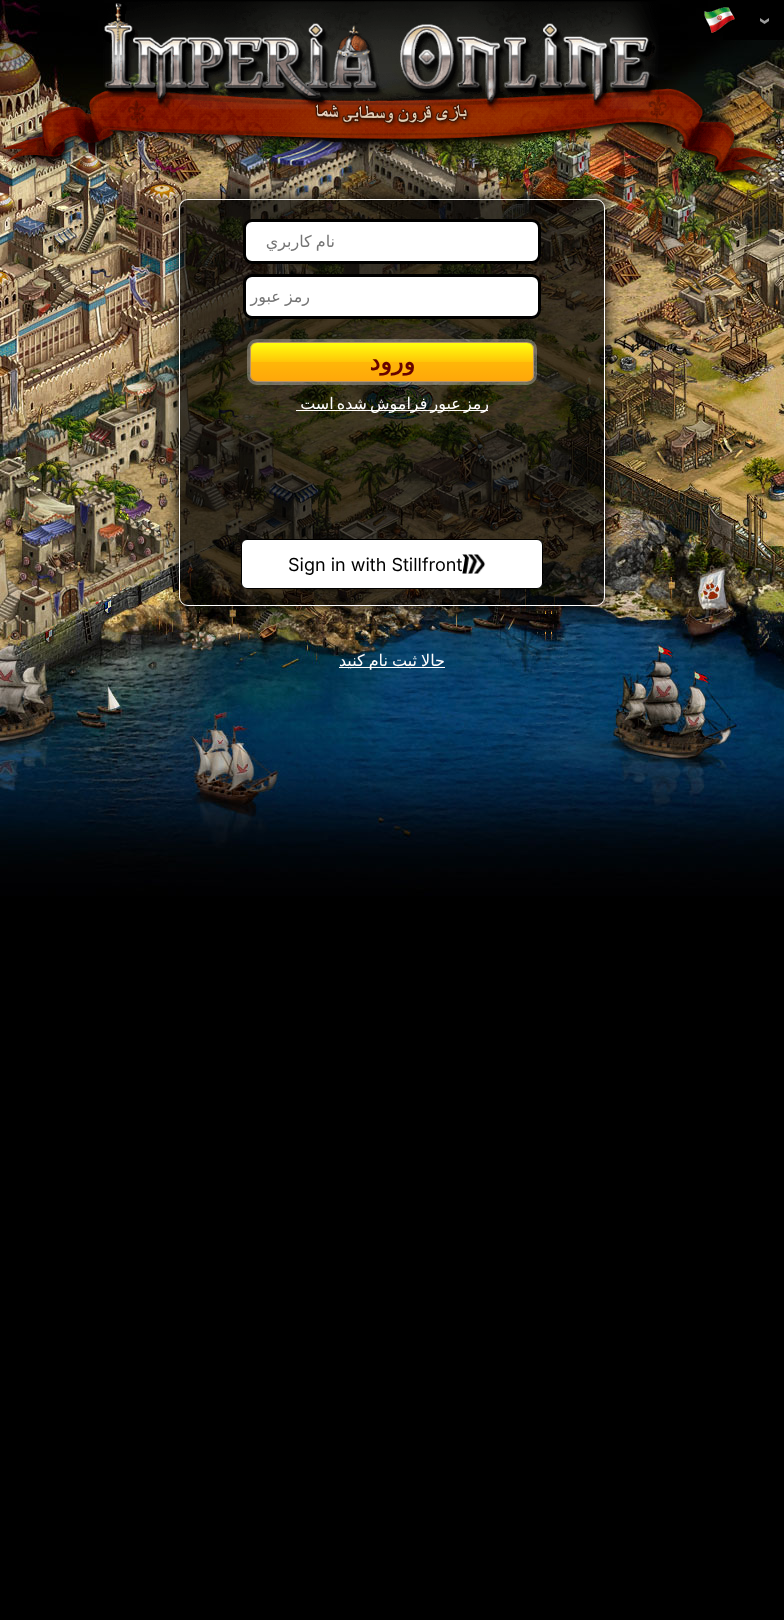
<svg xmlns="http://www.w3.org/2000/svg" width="784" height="1620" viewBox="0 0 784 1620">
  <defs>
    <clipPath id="clip1"><path d="M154 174H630V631H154ZM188 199H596C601 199 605 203 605 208V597C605 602 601 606 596 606H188C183 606 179 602 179 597V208C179 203 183 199 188 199Z" clip-rule="evenodd"/></clipPath>
    <filter id="blur1" x="-50%" y="-200%" width="200%" height="500%"><feGaussianBlur stdDeviation="8"/></filter>
    <clipPath id="clip2"><rect x="250" y="342" width="284" height="40" rx="7"/></clipPath>
    <linearGradient id="g1" gradientUnits="userSpaceOnUse" x1="392" y1="343" x2="392" y2="381"><stop offset="0" stop-color="#ffff0e"/><stop offset="0.5" stop-color="#ffc508"/><stop offset="0.51" stop-color="#ffb608"/><stop offset="1" stop-color="#ffa70a"/></linearGradient>
  </defs>
  <rect width="100%" height="100%" fill="#000000"/>
  <image x="0" y="0" width="784" height="896" href="img1.png"/>
  <image x="1" y="1" width="780" height="184" href="img4.png"/>
  <rect x="723" y="0" width="61" height="40" fill="#000000"/>
  <image x="760" y="18" width="9" height="6" href="img2.png"/>
  <image x="704" y="7" width="31" height="26" href="img3.png"/>
  <image x="314" y="103" width="157" height="24" href="img5.png"/>
  <g clip-path="url(#clip1)">
    <rect x="179" y="199" width="426" height="407" rx="9" fill="#000000" filter="url(#blur1)"/>
  </g>
  <rect x="179.5" y="199.5" width="425" height="406" rx="8.5" fill="#000000" fill-opacity="0.7" stroke="#fefefe"/>
  <rect x="244.5" y="220.5" width="295" height="42" rx="7.5" fill="#ffffff" stroke="#000000" stroke-width="3"/>
  <text x="335" y="247" word-spacing="-1" font-family="DejaVu Sans" font-size="16" direction="rtl" fill="#757575">نام کاربري</text>
  <rect x="244.5" y="275.5" width="295" height="42" rx="7.5" fill="#ffffff" stroke="#000000" stroke-width="3"/>
  <text x="310" y="302" word-spacing="-1" font-family="DejaVu Sans" font-size="16" direction="rtl" fill="#757575">رمز عبور</text>
  <rect x="248.5" y="340.5" width="287" height="43" rx="8.5" fill="none" stroke="#ffffff" stroke-opacity="0.3" stroke-width="3"/>
  <g clip-path="url(#clip2)">
    <rect x="250" y="343" width="284" height="38" fill="url(#g1)"/>
  </g>
  <rect x="250.5" y="342.5" width="283" height="39" rx="6.5" fill="none" stroke="#ba946c"/>
  <text x="415" y="370" font-family="DejaVu Sans" font-size="24" font-weight="bold" direction="rtl" fill="#660300">ورود</text>
  <rect x="296" y="410" width="192" height="1" fill="#fffefe"/>
  <text x="489" y="409" word-spacing="-2" font-family="DejaVu Sans" font-size="16" letter-spacing="0.2" direction="rtl" fill="#fffefe">رمز عبور فراموش شده است</text>
  <rect x="241.5" y="539.5" width="301" height="49" rx="5.5" fill="#ffffff" stroke="#000000"/>
  <image x="462" y="554" width="24" height="20" href="img6.png"/>
  <text x="288" y="571" font-family="Inter" font-size="18" fill="#000000">Sign in with Stillfront</text>
  <rect x="339" y="667" width="106" height="1" fill="#fffefe"/>
  <text x="445" y="666" word-spacing="-1" font-family="DejaVu Sans" font-size="16" direction="rtl" fill="#fffefe">حالا ثبت نام کنيد</text>
</svg>
